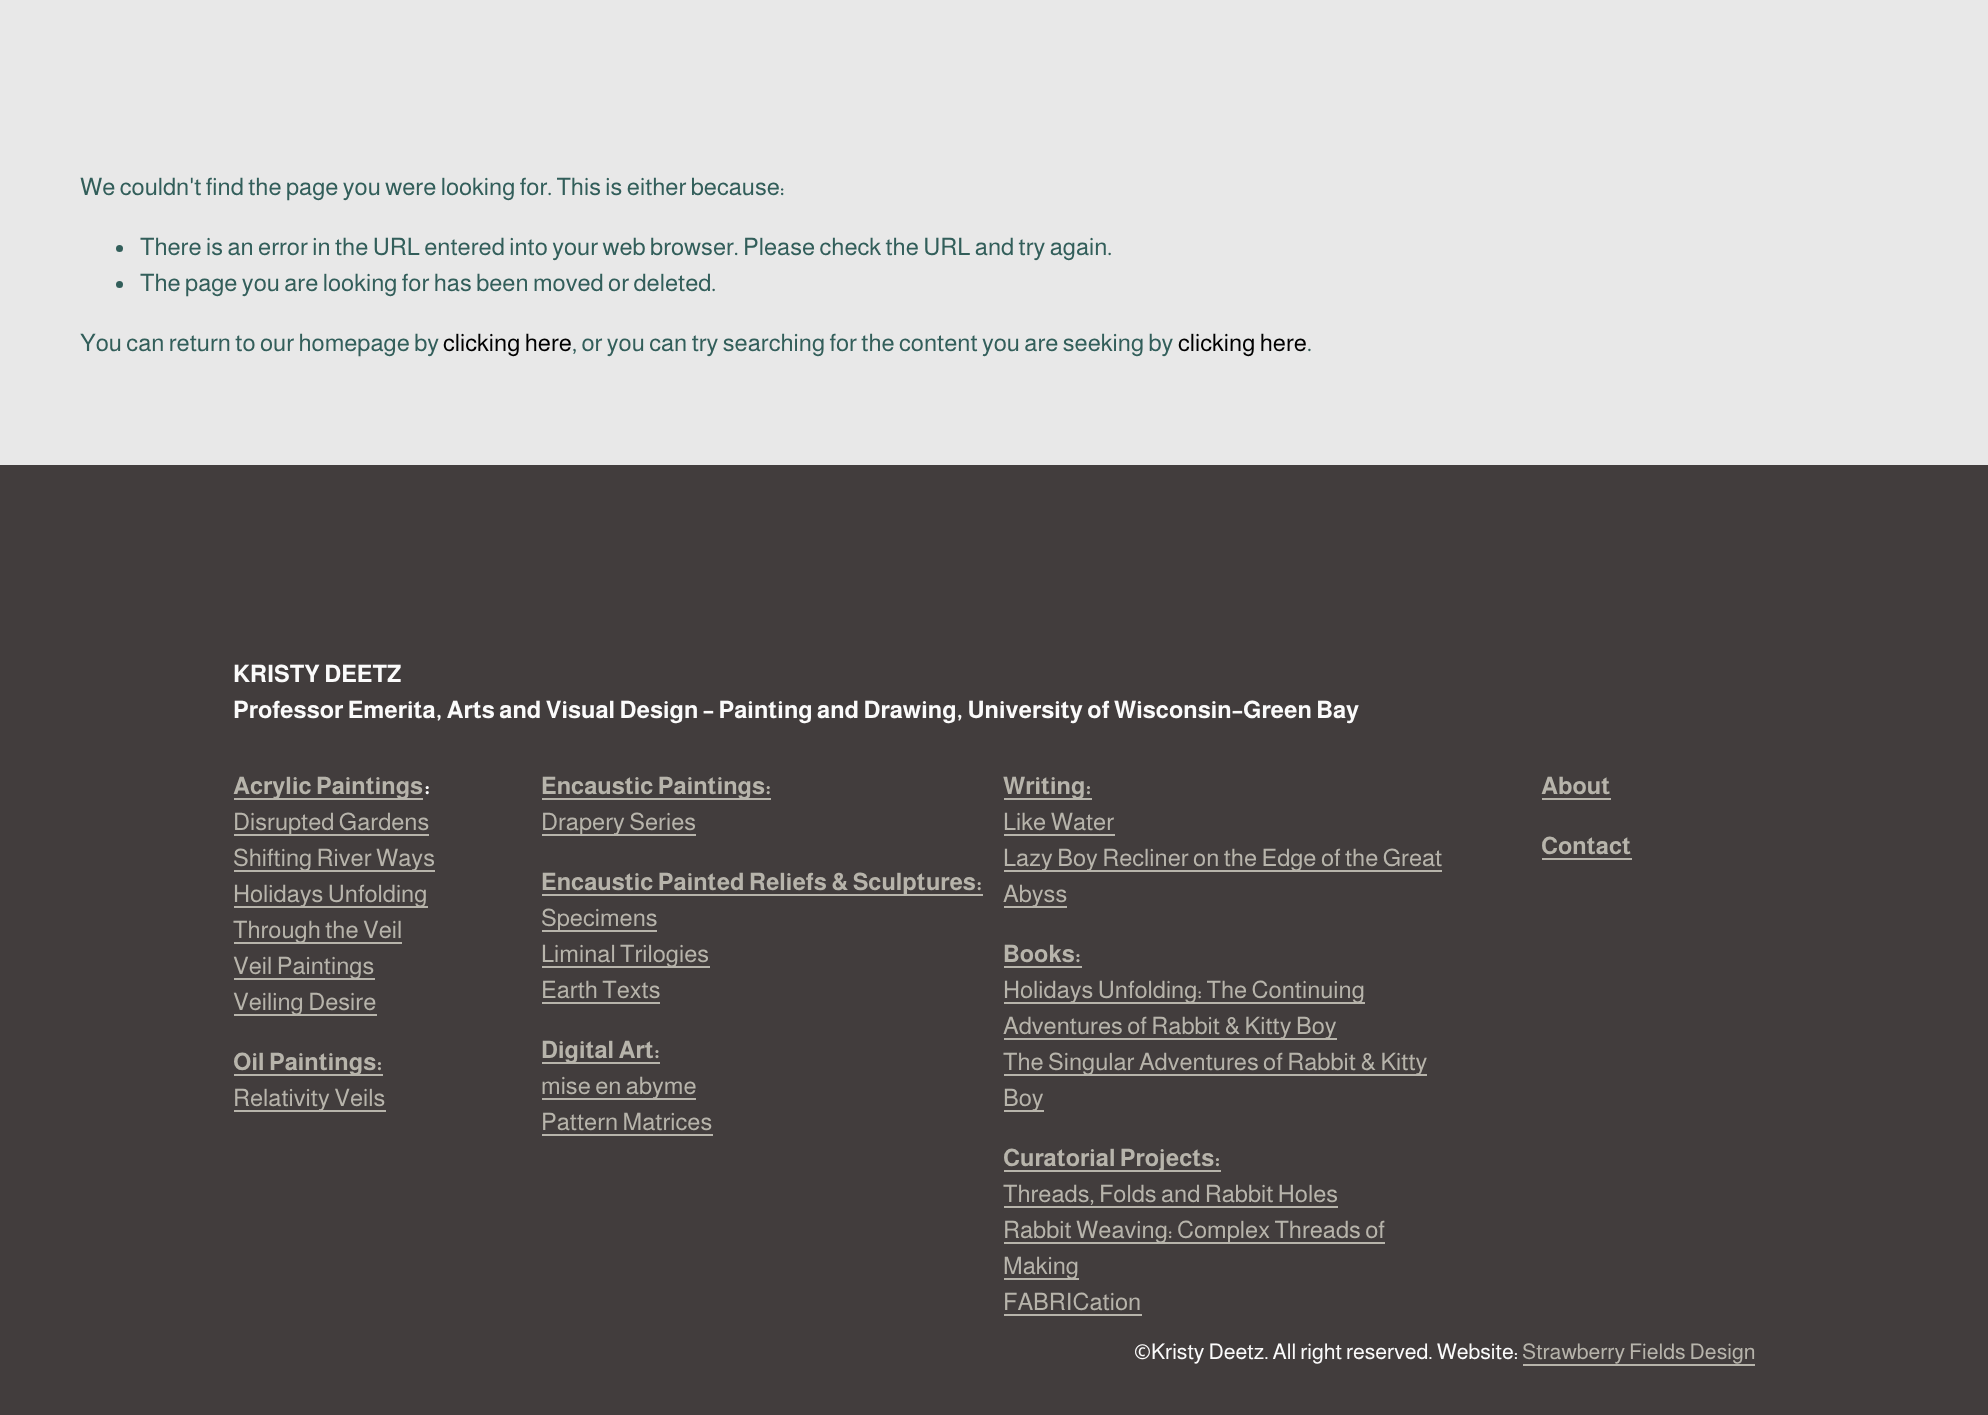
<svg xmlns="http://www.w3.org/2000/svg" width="1988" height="1415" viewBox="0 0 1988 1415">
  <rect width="100%" height="100%" fill="#e8e8e8"/>
  <text x="80" y="195" font-family="Almarai" font-size="24" fill="#325e5a">We couldn't find the page you were looking for. This is either because:</text>
  <circle cx="119.5" cy="248.5" r="3.5" fill="#325e5a"/>
  <text x="140" y="255" font-family="Almarai" font-size="24" fill="#325e5a">There is an error in the URL entered into your web browser. Please check the URL and try again.</text>
  <circle cx="119.5" cy="284.5" r="3.5" fill="#325e5a"/>
  <text x="140" y="291" font-family="Almarai" font-size="24" fill="#325e5a">The page you are looking for has been moved or deleted.</text>
  <text x="80" y="351" font-family="Almarai" font-size="24" fill="#325e5a">You can return to our homepage by</text>
  <text x="443" y="351" font-family="Almarai" font-size="24" fill="#000000">clicking here</text>
  <text x="572" y="351" font-family="Almarai" font-size="24" fill="#325e5a">, or you can try searching for the content you are seeking by</text>
  <text x="1178" y="351" font-family="Almarai" font-size="24" fill="#000000">clicking here</text>
  <text x="1307" y="351" font-family="Almarai" font-size="24" fill="#325e5a">.</text>
  <rect x="0" y="465" width="1988" height="950" fill="#423d3d"/>
  <text x="233" y="682" font-family="Almarai" font-size="24" font-weight="bold" fill="#fbfbfb">KRISTY DEETZ</text>
  <text x="233" y="718" font-family="Almarai" font-size="24" font-weight="bold" fill="#fbfbfb">Professor Emerita, Arts and Visual Design – Painting and Drawing, University of Wisconsin–Green Bay</text>
  <rect x="234" y="798" width="189" height="2" fill="#b7b4ab"/>
  <text x="233" y="794" font-family="Almarai" font-size="24" font-weight="bold" fill="#b7b4ab">Acrylic Paintings</text>
  <text x="424" y="794" font-family="Almarai" font-size="24" font-weight="bold" fill="#fbfbfb">:</text>
  <rect x="234" y="834" width="195" height="2" fill="#b7b4ab"/>
  <text x="233" y="830" font-family="Almarai" font-size="24" fill="#b7b4ab">Disrupted Gardens</text>
  <rect x="234" y="870" width="201" height="2" fill="#b7b4ab"/>
  <text x="233" y="866" font-family="Almarai" font-size="24" fill="#b7b4ab">Shifting River Ways</text>
  <rect x="234" y="906" width="194" height="2" fill="#b7b4ab"/>
  <text x="233" y="902" font-family="Almarai" font-size="24" fill="#b7b4ab">Holidays Unfolding</text>
  <rect x="234" y="942" width="168" height="2" fill="#b7b4ab"/>
  <text x="233" y="938" font-family="Almarai" font-size="24" fill="#b7b4ab">Through the Veil</text>
  <rect x="234" y="978" width="141" height="2" fill="#b7b4ab"/>
  <text x="233" y="974" font-family="Almarai" font-size="24" fill="#b7b4ab">Veil Paintings</text>
  <rect x="234" y="1014" width="143" height="2" fill="#b7b4ab"/>
  <text x="233" y="1010" font-family="Almarai" font-size="24" fill="#b7b4ab">Veiling Desire</text>
  <rect x="234" y="1074" width="149" height="2" fill="#b7b4ab"/>
  <text x="233" y="1070" font-family="Almarai" font-size="24" font-weight="bold" fill="#b7b4ab">Oil Paintings:</text>
  <rect x="234" y="1110" width="152" height="2" fill="#b7b4ab"/>
  <text x="233" y="1106" font-family="Almarai" font-size="24" fill="#b7b4ab">Relativity Veils</text>
  <rect x="542" y="798" width="229" height="2" fill="#b7b4ab"/>
  <text x="541" y="794" font-family="Almarai" font-size="24" font-weight="bold" fill="#b7b4ab">Encaustic Paintings:</text>
  <rect x="542" y="834" width="154" height="2" fill="#b7b4ab"/>
  <text x="541" y="830" font-family="Almarai" font-size="24" fill="#b7b4ab">Drapery Series</text>
  <rect x="542" y="894" width="441" height="2" fill="#b7b4ab"/>
  <text x="541" y="890" font-family="Almarai" font-size="24" font-weight="bold" fill="#b7b4ab">Encaustic Painted Reliefs &amp; Sculptures:</text>
  <rect x="542" y="930" width="115" height="2" fill="#b7b4ab"/>
  <text x="541" y="926" font-family="Almarai" font-size="24" fill="#b7b4ab">Specimens</text>
  <rect x="542" y="966" width="168" height="2" fill="#b7b4ab"/>
  <text x="541" y="962" font-family="Almarai" font-size="24" fill="#b7b4ab">Liminal Trilogies</text>
  <text x="541" y="998" font-family="Almarai" font-size="24" fill="#b7b4ab">Earth Texts</text>
  <rect x="542" y="1002" width="118" height="2" fill="#b7b4ab"/>
  <rect x="542" y="1062" width="118" height="2" fill="#b7b4ab"/>
  <text x="541" y="1058" font-family="Almarai" font-size="24" font-weight="bold" fill="#b7b4ab">Digital Art:</text>
  <rect x="542" y="1098" width="154" height="2" fill="#b7b4ab"/>
  <text x="541" y="1094" font-family="Almarai" font-size="24" fill="#b7b4ab">mise en abyme</text>
  <text x="541" y="1130" font-family="Almarai" font-size="24" fill="#b7b4ab">Pattern Matrices</text>
  <rect x="542" y="1134" width="171" height="2" fill="#b7b4ab"/>
  <rect x="1004" y="798" width="88" height="2" fill="#b7b4ab"/>
  <text x="1003" y="794" font-family="Almarai" font-size="24" font-weight="bold" fill="#b7b4ab">Writing:</text>
  <text x="1003" y="830" font-family="Almarai" font-size="24" fill="#b7b4ab">Like Water</text>
  <rect x="1004" y="834" width="111" height="2" fill="#b7b4ab"/>
  <rect x="1004" y="870" width="438" height="2" fill="#b7b4ab"/>
  <text x="1003" y="866" font-family="Almarai" font-size="24" fill="#b7b4ab">Lazy Boy Recliner on the Edge of the Great</text>
  <rect x="1004" y="906" width="63" height="2" fill="#b7b4ab"/>
  <text x="1003" y="902" font-family="Almarai" font-size="24" fill="#b7b4ab">Abyss</text>
  <text x="1003" y="962" font-family="Almarai" font-size="24" font-weight="bold" fill="#b7b4ab">Books:</text>
  <rect x="1004" y="966" width="78" height="2" fill="#b7b4ab"/>
  <rect x="1004" y="1002" width="361" height="2" fill="#b7b4ab"/>
  <text x="1003" y="998" font-family="Almarai" font-size="24" fill="#b7b4ab">Holidays Unfolding: The Continuing</text>
  <rect x="1004" y="1038" width="333" height="2" fill="#b7b4ab"/>
  <text x="1003" y="1034" font-family="Almarai" font-size="24" fill="#b7b4ab">Adventures of Rabbit &amp; Kitty Boy</text>
  <rect x="1004" y="1074" width="423" height="2" fill="#b7b4ab"/>
  <text x="1003" y="1070" font-family="Almarai" font-size="24" fill="#b7b4ab">The Singular Adventures of Rabbit &amp; Kitty</text>
  <rect x="1004" y="1110" width="40" height="2" fill="#b7b4ab"/>
  <text x="1003" y="1106" font-family="Almarai" font-size="24" fill="#b7b4ab">Boy</text>
  <rect x="1004" y="1170" width="217" height="2" fill="#b7b4ab"/>
  <text x="1003" y="1166" font-family="Almarai" font-size="24" font-weight="bold" fill="#b7b4ab">Curatorial Projects:</text>
  <text x="1003" y="1202" font-family="Almarai" font-size="24" fill="#b7b4ab">Threads, Folds and Rabbit Holes</text>
  <rect x="1004" y="1206" width="334" height="2" fill="#b7b4ab"/>
  <rect x="1004" y="1242" width="381" height="2" fill="#b7b4ab"/>
  <text x="1003" y="1238" font-family="Almarai" font-size="24" fill="#b7b4ab">Rabbit Weaving: Complex Threads of</text>
  <rect x="1004" y="1278" width="75" height="2" fill="#b7b4ab"/>
  <text x="1003" y="1274" font-family="Almarai" font-size="24" fill="#b7b4ab">Making</text>
  <text x="1003" y="1310" font-family="Almarai" font-size="24" fill="#b7b4ab">FABRICation</text>
  <rect x="1004" y="1314" width="138" height="2" fill="#b7b4ab"/>
  <text x="1541" y="794" font-family="Almarai" font-size="24" font-weight="bold" fill="#b7b4ab">About</text>
  <rect x="1542" y="798" width="69" height="2" fill="#b7b4ab"/>
  <text x="1541" y="854" font-family="Almarai" font-size="24" font-weight="bold" fill="#b7b4ab">Contact</text>
  <rect x="1542" y="858" width="90" height="2" fill="#b7b4ab"/>
  <text x="1134" y="1359" font-family="Almarai" font-size="21.6" fill="#fbfbfb">©Kristy Deetz. All right reserved. Website:</text>
  <text x="1522" y="1359" font-family="Almarai" font-size="21.6" fill="#b7b4ab">Strawberry Fields Design</text>
  <rect x="1523" y="1364" width="232" height="2" fill="#b7b4ab"/>
</svg>
